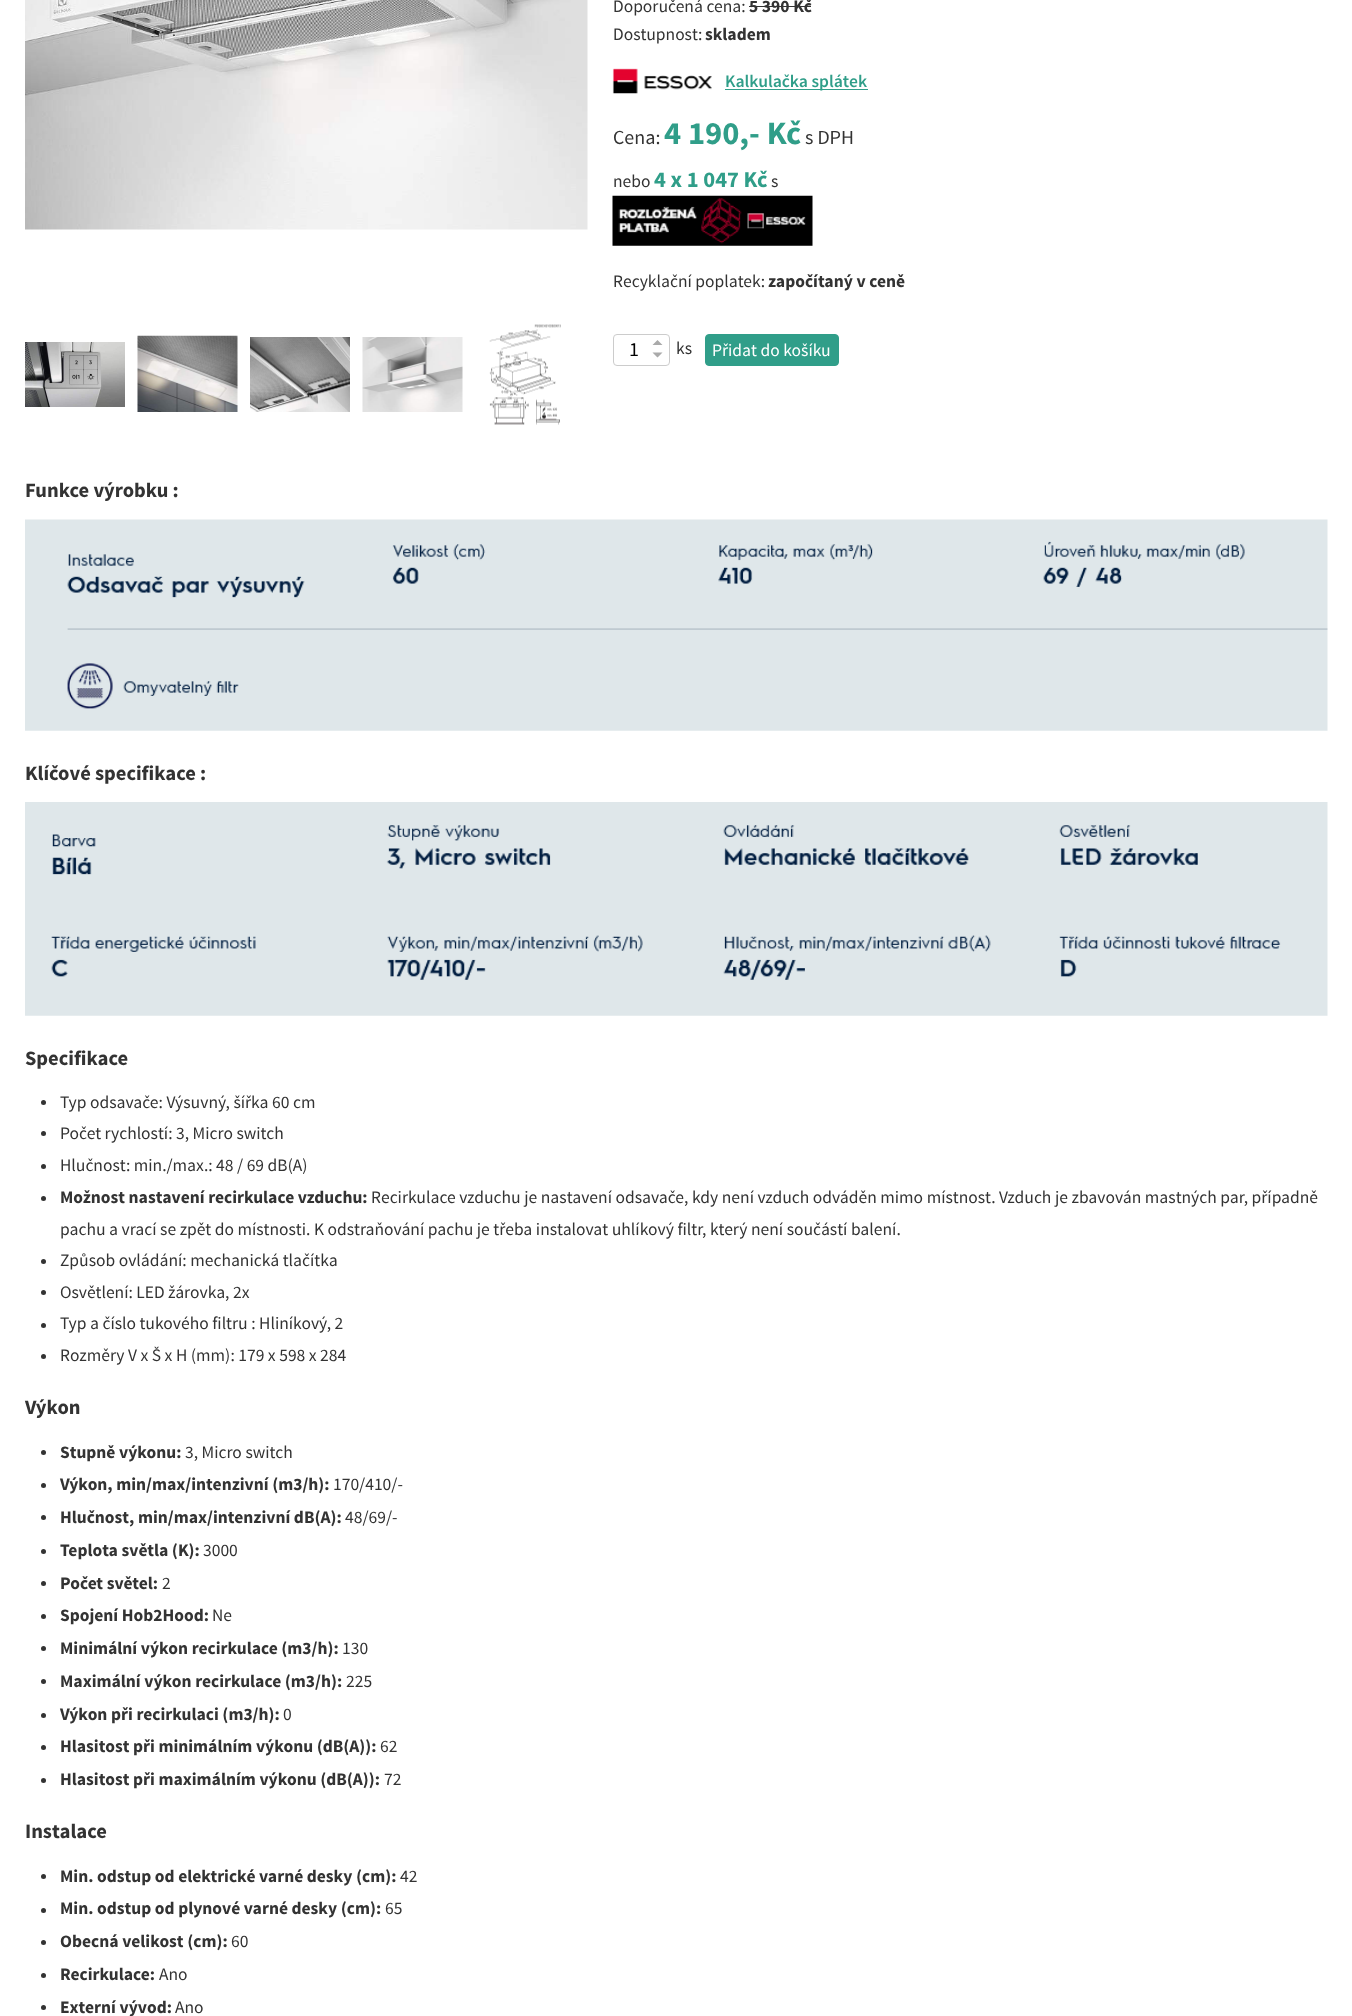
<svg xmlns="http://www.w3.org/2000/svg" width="1352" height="2016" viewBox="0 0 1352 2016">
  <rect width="100%" height="100%" fill="#ffffff"/>
  <image x="25" y="0" width="563" height="230" href="img1.png"/>
  <image x="25" y="342" width="100" height="65" href="img2.png"/>
  <image x="137" y="335" width="101" height="77" href="img3.png"/>
  <image x="250" y="337" width="100" height="75" href="img4.png"/>
  <image x="362" y="337" width="101" height="75" href="img5.png"/>
  <image x="489" y="324" width="72" height="101" href="img6.png"/>
  <text x="613" y="12" font-family="Source Sans Pro" font-size="17.5" fill="#333333">Doporučená cena:</text>
  <text x="749" y="12" font-family="Source Sans Pro" font-size="17.5" font-weight="bold" fill="#333333">5 390 Kč</text>
  <rect x="749" y="6" width="62" height="1" fill="#333333"/>
  <text x="613" y="40" font-family="Source Sans Pro" font-size="17.5" fill="#333333">Dostupnost:</text>
  <text x="705" y="40" font-family="Source Sans Pro" font-size="17.5" font-weight="bold" fill="#333333">skladem</text>
  <image x="612" y="68" width="100" height="26" href="img7.png"/>
  <rect x="725" y="89" width="143" height="1" fill="#309e89"/>
  <text x="725" y="87" font-family="Source Sans Pro" font-size="17.5" font-weight="600" fill="#309e89">Kalkulačka splátek</text>
  <text x="613" y="144" font-family="Source Sans Pro" font-size="20" fill="#333333">Cena:</text>
  <text x="664" y="144" font-family="Source Sans Pro" font-size="32.5" font-weight="bold" fill="#309e89">4 190,- Kč</text>
  <text x="805" y="144" font-family="Source Sans Pro" font-size="20" fill="#333333">s DPH</text>
  <text x="613" y="187" font-family="Source Sans Pro" font-size="17.5" fill="#333333">nebo</text>
  <text x="654" y="187" font-family="Source Sans Pro" font-size="22.5" font-weight="bold" fill="#309e89">4 x 1 047 Kč</text>
  <text x="771" y="187" font-family="Source Sans Pro" font-size="17.5" fill="#333333">s</text>
  <image x="612" y="195" width="201" height="51" href="img8.png"/>
  <text x="613" y="287" font-family="Source Sans Pro" font-size="17.5" fill="#333333">Recyklační poplatek:</text>
  <text x="768" y="287" font-family="Source Sans Pro" font-size="17.5" font-weight="bold" fill="#333333">započítaný v ceně</text>
  <rect x="613.5" y="334.5" width="56" height="31" rx="3.5" fill="none" stroke="#cccccc"/>
  <text x="629" y="356" font-family="Source Sans Pro" font-size="20" fill="#000000">1</text>
  <path d="M662.5 345H652.5L657.5 340ZM652.5 352.5H662.5L657.5 357.5Z" fill="#aaaaaa"/>
  <text x="676" y="354" font-family="Source Sans Pro" font-size="17.5" fill="#333333">ks</text>
  <rect x="705.5" y="334.5" width="133" height="31" rx="3.5" fill="#309e89" stroke="#309e89"/>
  <text x="712" y="356" font-family="Source Sans Pro" font-size="17.5" fill="#ffffff">Přidat do košíku</text>
  <text x="25" y="497" font-family="Source Sans Pro" font-size="20.5" font-weight="bold" fill="#333333">Funkce výrobku :</text>
  <image x="25" y="519" width="1303" height="212" href="img9.png"/>
  <text x="25" y="780" font-family="Source Sans Pro" font-size="20.5" font-weight="bold" fill="#333333">Klíčové specifikace :</text>
  <image x="25" y="802" width="1303" height="214" href="img10.png"/>
  <text x="25" y="1065" font-family="Source Sans Pro" font-size="20.5" font-weight="bold" fill="#333333">Specifikace</text>
  <circle cx="43.5" cy="1102.5" r="2.5" fill="#333333"/>
  <text x="60" y="1108" font-family="Source Sans Pro" font-size="17.5" fill="#333333">Typ odsavače: Výsuvný, šířka 60 cm</text>
  <circle cx="43.5" cy="1133.5" r="2.5" fill="#333333"/>
  <text x="60" y="1139" font-family="Source Sans Pro" font-size="17.5" fill="#333333">Počet rychlostí: 3, Micro switch</text>
  <circle cx="43.5" cy="1166.5" r="2.5" fill="#333333"/>
  <text x="60" y="1171" font-family="Source Sans Pro" font-size="17.5" fill="#333333">Hlučnost: min./max.: 48 / 69 dB(A)</text>
  <circle cx="43.5" cy="1198.5" r="2.5" fill="#333333"/>
  <text x="60" y="1203" font-family="Source Sans Pro" font-size="17.5" font-weight="bold" fill="#333333">Možnost nastavení recirkulace vzduchu:</text>
  <text x="371" y="1203" font-family="Source Sans Pro" font-size="17.5" fill="#333333">Recirkulace vzduchu je nastavení odsavače, kdy není vzduch odváděn mimo místnost. Vzduch je zbavován mastných par, případně</text>
  <text x="60" y="1235" font-family="Source Sans Pro" font-size="17.5" fill="#333333">pachu a vrací se zpět do místnosti. K odstraňování pachu je třeba instalovat uhlíkový filtr, který není součástí balení.</text>
  <circle cx="43.5" cy="1261.5" r="2.5" fill="#333333"/>
  <text x="60" y="1266" font-family="Source Sans Pro" font-size="17.5" fill="#333333">Způsob ovládání: mechanická tlačítka</text>
  <circle cx="43.5" cy="1292.5" r="2.5" fill="#333333"/>
  <text x="60" y="1298" font-family="Source Sans Pro" font-size="17.5" fill="#333333">Osvětlení: LED žárovka, 2x</text>
  <circle cx="43.5" cy="1325.5" r="2.5" fill="#333333"/>
  <text x="60" y="1329" font-family="Source Sans Pro" font-size="17.5" fill="#333333">Typ a číslo tukového filtru : Hliníkový, 2</text>
  <circle cx="43.5" cy="1356.5" r="2.5" fill="#333333"/>
  <text x="60" y="1361" font-family="Source Sans Pro" font-size="17.5" fill="#333333">Rozměry V x Š x H (mm): 179 x 598 x 284</text>
  <text x="25" y="1414" font-family="Source Sans Pro" font-size="20.5" font-weight="bold" fill="#333333">Výkon</text>
  <circle cx="43.5" cy="1452.5" r="2.5" fill="#333333"/>
  <text x="60" y="1458" font-family="Source Sans Pro" font-size="17.5" font-weight="bold" fill="#333333">Stupně výkonu:</text>
  <text x="185" y="1458" font-family="Source Sans Pro" font-size="17.5" fill="#333333">3, Micro switch</text>
  <circle cx="43.5" cy="1485.5" r="2.5" fill="#333333"/>
  <text x="60" y="1490" font-family="Source Sans Pro" font-size="17.5" font-weight="bold" fill="#333333">Výkon, min/max/intenzivní (m3/h):</text>
  <text x="333" y="1490" font-family="Source Sans Pro" font-size="17.5" fill="#333333">170/410/-</text>
  <circle cx="43.5" cy="1517.5" r="2.5" fill="#333333"/>
  <text x="60" y="1523" font-family="Source Sans Pro" font-size="17.5" font-weight="bold" fill="#333333">Hlučnost, min/max/intenzivní dB(A):</text>
  <text x="345" y="1523" font-family="Source Sans Pro" font-size="17.5" fill="#333333">48/69/-</text>
  <circle cx="43.5" cy="1551.5" r="2.5" fill="#333333"/>
  <text x="60" y="1556" font-family="Source Sans Pro" font-size="17.5" font-weight="bold" fill="#333333">Teplota světla (K):</text>
  <text x="203" y="1556" font-family="Source Sans Pro" font-size="17.5" fill="#333333">3000</text>
  <circle cx="43.5" cy="1583.5" r="2.5" fill="#333333"/>
  <text x="60" y="1589" font-family="Source Sans Pro" font-size="17.5" font-weight="bold" fill="#333333">Počet světel:</text>
  <text x="162" y="1589" font-family="Source Sans Pro" font-size="17.5" fill="#333333">2</text>
  <circle cx="43.5" cy="1616.5" r="2.5" fill="#333333"/>
  <text x="60" y="1621" font-family="Source Sans Pro" font-size="17.5" font-weight="bold" fill="#333333">Spojení Hob2Hood:</text>
  <text x="212" y="1621" font-family="Source Sans Pro" font-size="17.5" fill="#333333">Ne</text>
  <circle cx="43.5" cy="1648.5" r="2.5" fill="#333333"/>
  <text x="60" y="1654" font-family="Source Sans Pro" font-size="17.5" font-weight="bold" fill="#333333">Minimální výkon recirkulace (m3/h):</text>
  <text x="342" y="1654" font-family="Source Sans Pro" font-size="17.5" fill="#333333">130</text>
  <circle cx="43.5" cy="1681.5" r="2.5" fill="#333333"/>
  <text x="60" y="1687" font-family="Source Sans Pro" font-size="17.5" font-weight="bold" fill="#333333">Maximální výkon recirkulace (m3/h):</text>
  <text x="346" y="1687" font-family="Source Sans Pro" font-size="17.5" fill="#333333">225</text>
  <circle cx="43.5" cy="1715.5" r="2.5" fill="#333333"/>
  <text x="60" y="1720" font-family="Source Sans Pro" font-size="17.5" font-weight="bold" fill="#333333">Výkon při recirkulaci (m3/h):</text>
  <text x="283" y="1720" font-family="Source Sans Pro" font-size="17.5" fill="#333333">0</text>
  <circle cx="43.5" cy="1747.5" r="2.5" fill="#333333"/>
  <text x="60" y="1752" font-family="Source Sans Pro" font-size="17.5" font-weight="bold" fill="#333333">Hlasitost při minimálním výkonu (dB(A)):</text>
  <text x="380" y="1752" font-family="Source Sans Pro" font-size="17.5" fill="#333333">62</text>
  <circle cx="43.5" cy="1780.5" r="2.5" fill="#333333"/>
  <text x="60" y="1785" font-family="Source Sans Pro" font-size="17.5" font-weight="bold" fill="#333333">Hlasitost při maximálním výkonu (dB(A)):</text>
  <text x="384" y="1785" font-family="Source Sans Pro" font-size="17.5" fill="#333333">72</text>
  <text x="25" y="1838" font-family="Source Sans Pro" font-size="20.5" font-weight="bold" fill="#333333">Instalace</text>
  <circle cx="43.5" cy="1876.5" r="2.5" fill="#333333"/>
  <text x="60" y="1882" font-family="Source Sans Pro" font-size="17.5" font-weight="bold" fill="#333333">Min. odstup od elektrické varné desky (cm):</text>
  <text x="400" y="1882" font-family="Source Sans Pro" font-size="17.5" fill="#333333">42</text>
  <circle cx="43.5" cy="1910.5" r="2.5" fill="#333333"/>
  <text x="60" y="1914" font-family="Source Sans Pro" font-size="17.5" font-weight="bold" fill="#333333">Min. odstup od plynové varné desky (cm):</text>
  <text x="385" y="1914" font-family="Source Sans Pro" font-size="17.5" fill="#333333">65</text>
  <circle cx="43.5" cy="1942.5" r="2.5" fill="#333333"/>
  <text x="60" y="1947" font-family="Source Sans Pro" font-size="17.5" font-weight="bold" fill="#333333">Obecná velikost (cm):</text>
  <text x="231" y="1947" font-family="Source Sans Pro" font-size="17.5" fill="#333333">60</text>
  <circle cx="43.5" cy="1975.5" r="2.5" fill="#333333"/>
  <text x="60" y="1980" font-family="Source Sans Pro" font-size="17.5" font-weight="bold" fill="#333333">Recirkulace:</text>
  <text x="159" y="1980" font-family="Source Sans Pro" font-size="17.5" fill="#333333">Ano</text>
  <circle cx="43.5" cy="2007.5" r="2.5" fill="#333333"/>
  <text x="60" y="2013" font-family="Source Sans Pro" font-size="17.5" font-weight="bold" fill="#333333">Externí vývod:</text>
  <text x="175" y="2013" font-family="Source Sans Pro" font-size="17.5" fill="#333333">Ano</text>
</svg>
